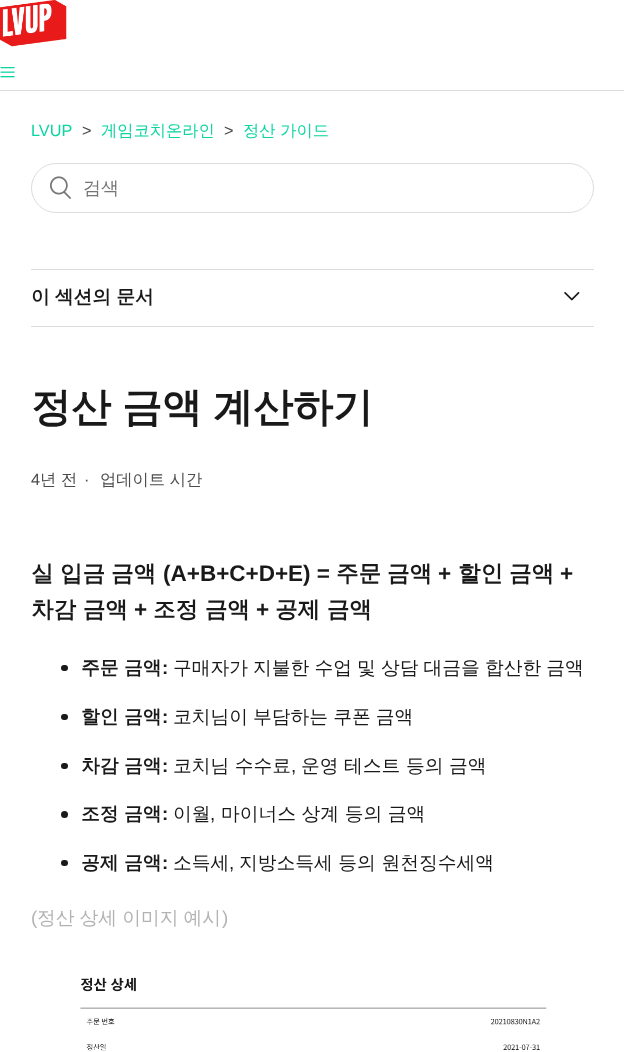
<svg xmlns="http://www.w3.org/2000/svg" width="624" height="1052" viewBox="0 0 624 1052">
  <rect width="100%" height="100%" fill="#ffffff"/>
  <image x="0" y="0" width="67" height="47" href="img1.png"/>
  <image x="0" y="67" width="15" height="11" href="img2.png"/>
  <rect x="0" y="90" width="624" height="1" fill="#dddddd"/>
  <text x="31" y="136" font-family="Liberation Sans" font-size="16.25" fill="#0bd5a1">LVUP</text>
  <text x="82" y="136" font-family="Liberation Sans" font-size="16.25" fill="#4c4c4c">&gt;</text>
  <text x="101" y="136" font-family="WenQuanYi Zen Hei" font-size="16.25" font-weight="500" fill="#0bd5a1">게임코치온라인</text>
  <text x="224" y="136" font-family="Liberation Sans" font-size="16.25" fill="#4c4c4c">&gt;</text>
  <text x="243" y="136" font-family="WenQuanYi Zen Hei" font-size="16.25" font-weight="500" fill="#0bd5a1">정산 가이드</text>
  <rect x="31.5" y="163.5" width="562" height="49" rx="24.5" fill="none" stroke="#dddddd"/>
  <image x="50" y="176" width="21" height="23" href="img3.png"/>
  <text x="83" y="194" font-family="WenQuanYi Zen Hei" font-size="18" font-weight="500" fill="#757575">검색</text>
  <rect x="31" y="269" width="563" height="1" fill="#dddddd"/>
  <rect x="31" y="326" width="563" height="1" fill="#dddddd"/>
  <text x="31" y="303" word-spacing="-0.5" font-family="WenQuanYi Zen Hei" font-size="18.75" font-weight="bold" fill="#191919">이 섹션의 문서</text>
  <image x="564" y="292" width="16" height="9" href="img4.png"/>
  <text x="31" y="421" word-spacing="-1" font-family="WenQuanYi Zen Hei" font-size="40" font-weight="bold" fill="#191919">정산 금액 계산하기</text>
  <text x="31" y="485" font-family="Liberation Sans" font-size="16.25" fill="#4c4c4c">4</text>
  <text x="40" y="485" font-family="WenQuanYi Zen Hei" font-size="16.25" font-weight="500" fill="#4c4c4c">년 전</text>
  <text x="84" y="485" font-family="Liberation Sans" font-size="16.25" fill="#4c4c4c">·</text>
  <text x="100" y="485" font-family="WenQuanYi Zen Hei" font-size="16.25" font-weight="500" fill="#4c4c4c">업데이트 시간</text>
  <text x="31" y="581" font-family="WenQuanYi Zen Hei" font-size="22.5" font-weight="bold" fill="#191919">실</text>
  <text x="60" y="581" font-family="WenQuanYi Zen Hei" font-size="22.5" font-weight="bold" fill="#191919">입금</text>
  <text x="111" y="581" font-family="WenQuanYi Zen Hei" font-size="22.5" font-weight="bold" fill="#191919">금액</text>
  <text x="163" y="581" font-family="Liberation Sans" font-size="22.5" font-weight="bold" fill="#191919">(A+B+C+D+E) =</text>
  <text x="336" y="581" font-family="WenQuanYi Zen Hei" font-size="22.5" font-weight="bold" fill="#191919">주문</text>
  <text x="387" y="581" font-family="WenQuanYi Zen Hei" font-size="22.5" font-weight="bold" fill="#191919">금액</text>
  <text x="438" y="581" font-family="Liberation Sans" font-size="22.5" font-weight="bold" fill="#191919">+</text>
  <text x="458" y="581" font-family="WenQuanYi Zen Hei" font-size="22.5" font-weight="bold" fill="#191919">할인</text>
  <text x="509" y="581" font-family="WenQuanYi Zen Hei" font-size="22.5" font-weight="bold" fill="#191919">금액</text>
  <text x="560" y="581" font-family="Liberation Sans" font-size="22.5" font-weight="bold" fill="#191919">+</text>
  <text x="31" y="617" font-family="WenQuanYi Zen Hei" font-size="22.5" font-weight="bold" fill="#191919">차감 금액</text>
  <text x="134" y="617" font-family="Liberation Sans" font-size="22.5" font-weight="bold" fill="#191919">+</text>
  <text x="153" y="617" font-family="WenQuanYi Zen Hei" font-size="22.5" font-weight="bold" fill="#191919">조정 금액</text>
  <text x="256" y="617" font-family="Liberation Sans" font-size="22.5" font-weight="bold" fill="#191919">+</text>
  <text x="275" y="617" font-family="WenQuanYi Zen Hei" font-size="22.5" font-weight="bold" fill="#191919">공제 금액</text>
  <rect x="61" y="665" width="7" height="6" rx="3" fill="#191919"/>
  <text x="81" y="674" font-family="WenQuanYi Zen Hei" font-size="18.75" font-weight="bold" fill="#191919">주문 금액</text>
  <text x="162" y="674" font-family="Liberation Sans" font-size="18.75" font-weight="bold" fill="#191919">:</text>
  <text x="173" y="674" word-spacing="-0.5" font-family="WenQuanYi Zen Hei" font-size="18.75" font-weight="500" fill="#191919">구매자가 지불한 수업 및 상담 대금을 합산한 금액</text>
  <rect x="61" y="714" width="7" height="6" rx="3" fill="#191919"/>
  <text x="81" y="723" font-family="WenQuanYi Zen Hei" font-size="18.75" font-weight="bold" fill="#191919">할인 금액</text>
  <text x="162" y="723" font-family="Liberation Sans" font-size="18.75" font-weight="bold" fill="#191919">:</text>
  <text x="173" y="723" word-spacing="-0.5" font-family="WenQuanYi Zen Hei" font-size="18.75" font-weight="500" fill="#191919">코치님이 부담하는 쿠폰 금액</text>
  <rect x="61" y="763" width="7" height="6" rx="3" fill="#191919"/>
  <text x="81" y="772" font-family="WenQuanYi Zen Hei" font-size="18.75" font-weight="bold" fill="#191919">차감 금액</text>
  <text x="162" y="772" font-family="Liberation Sans" font-size="18.75" font-weight="bold" fill="#191919">:</text>
  <text x="173" y="772" font-family="WenQuanYi Zen Hei" font-size="18.75" font-weight="500" fill="#191919">코치님 수수료</text>
  <text x="301" y="772" font-family="WenQuanYi Zen Hei" font-size="18.75" font-weight="500" fill="#191919">운영 테스트 등의 금액</text>
  <text x="291" y="772" font-family="Liberation Sans" font-size="18.75" fill="#191919">,</text>
  <circle cx="64.5" cy="814.5" r="3.5" fill="#191919"/>
  <text x="81" y="820" font-family="WenQuanYi Zen Hei" font-size="18.75" font-weight="bold" fill="#191919">조정 금액</text>
  <text x="162" y="820" font-family="Liberation Sans" font-size="18.75" font-weight="bold" fill="#191919">:</text>
  <text x="173" y="820" font-family="WenQuanYi Zen Hei" font-size="18.75" font-weight="500" fill="#191919">이월</text>
  <text x="221" y="820" font-family="WenQuanYi Zen Hei" font-size="18.75" font-weight="500" fill="#191919">마이너스 상계 등의 금액</text>
  <text x="210" y="820" font-family="Liberation Sans" font-size="18.75" fill="#191919">,</text>
  <rect x="61" y="860" width="7" height="6" rx="3" fill="#191919"/>
  <text x="81" y="869" font-family="WenQuanYi Zen Hei" font-size="18.75" font-weight="bold" fill="#191919">공제 금액</text>
  <text x="162" y="869" font-family="Liberation Sans" font-size="18.75" font-weight="bold" fill="#191919">:</text>
  <text x="173" y="869" font-family="WenQuanYi Zen Hei" font-size="18.75" font-weight="500" fill="#191919">소득세</text>
  <text x="239" y="869" font-family="WenQuanYi Zen Hei" font-size="18.75" font-weight="500" fill="#191919">지방소득세 등의 원천징수세액</text>
  <text x="229" y="869" font-family="Liberation Sans" font-size="18.75" fill="#191919">,</text>
  <text x="31" y="924" font-family="Liberation Sans" font-size="18.75" fill="#b3b3b3">(</text>
  <text x="37" y="924" word-spacing="-0.5" font-family="WenQuanYi Zen Hei" font-size="18.75" font-weight="500" fill="#b3b3b3">정산 상세 이미지 예시</text>
  <text x="222" y="924" font-family="Liberation Sans" font-size="18.75" fill="#b3b3b3">)</text>
  <image x="80" y="977" width="467" height="74" href="img5.png"/>
</svg>
